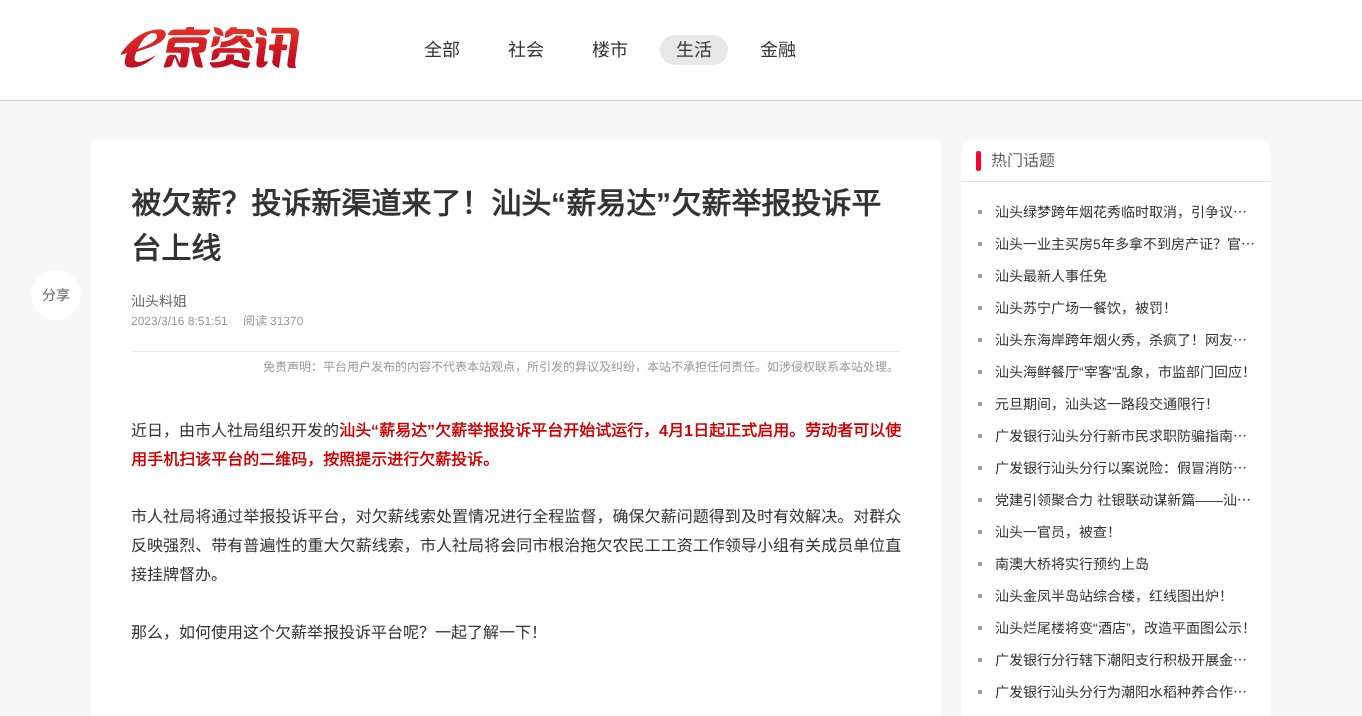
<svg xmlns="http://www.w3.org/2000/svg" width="1362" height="716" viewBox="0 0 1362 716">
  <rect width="100%" height="100%" fill="#f8f8f8"/>
  <rect x="0" y="0" width="1362" height="100" fill="#ffffff"/>
  <rect x="0" y="100" width="1362" height="1" fill="#cccccc"/>
  <image x="121" y="27" width="178" height="41" href="img1.png"/>
  <text x="424" y="56" font-family="Noto Sans CJK SC" font-size="18" fill="#333333">全部</text>
  <text x="508" y="56" font-family="Noto Sans CJK SC" font-size="18" fill="#333333">社会</text>
  <text x="592" y="56" font-family="Noto Sans CJK SC" font-size="18" fill="#333333">楼市</text>
  <rect x="660" y="35" width="68" height="30" rx="15" fill="#e8e8e8"/>
  <text x="676" y="56" font-family="Noto Sans CJK SC" font-size="18" fill="#333333">生活</text>
  <text x="760" y="56" font-family="Noto Sans CJK SC" font-size="18" fill="#333333">金融</text>
  <rect x="91" y="141" width="850" height="575" fill="#ffffff"/>
  <text x="131" y="214" font-family="Noto Sans CJK SC" font-size="30" font-weight="bold" fill="#333333">被欠薪？投诉新渠道来了！汕头</text>
  <text x="551" y="214" font-family="Liberation Sans" font-size="30" font-weight="bold" fill="#333333">“</text>
  <text x="566" y="214" font-family="Noto Sans CJK SC" font-size="30" font-weight="bold" fill="#333333">薪易达</text>
  <text x="656" y="214" font-family="Liberation Sans" font-size="30" font-weight="bold" fill="#333333">”</text>
  <text x="671" y="214" font-family="Noto Sans CJK SC" font-size="30" font-weight="bold" fill="#333333">欠薪举报投诉平</text>
  <text x="131" y="259" font-family="Noto Sans CJK SC" font-size="30" font-weight="bold" fill="#333333">台上线</text>
  <circle cx="56" cy="295" r="25" fill="#ffffff"/>
  <text x="42" y="300" font-family="Noto Sans CJK SC" font-size="14" fill="#666666">分享</text>
  <rect x="131" y="351" width="770" height="1" fill="#e8e8e8"/>
  <text x="131" y="306" font-family="Noto Sans CJK SC" font-size="14" fill="#666666">汕头料姐</text>
  <text x="131" y="325" font-family="Liberation Sans" font-size="12" fill="#999999">2023/3/16 8:51:51</text>
  <text x="243" y="325" font-family="Noto Sans CJK SC" font-size="12" fill="#999999">阅读</text>
  <text x="270" y="325" font-family="Liberation Sans" font-size="12" fill="#999999">31370</text>
  <text x="263" y="371" font-family="Noto Sans CJK SC" font-size="12" fill="#999999">免责声明：平台用户发布的内容不代表本站观点，所引发的异议及纠纷，本站不承担任何责任。如涉侵权联系本站处理。</text>
  <text x="131" y="436" font-family="Noto Sans CJK SC" font-size="16" fill="#333333">近日，由市人社局组织开发的</text>
  <text x="339" y="436" font-family="Noto Sans CJK SC" font-size="16" font-weight="bold" fill="#ce0000">汕头</text>
  <text x="371" y="436" font-family="Liberation Sans" font-size="16" font-weight="bold" fill="#ce0000">“</text>
  <text x="379" y="436" font-family="Noto Sans CJK SC" font-size="16" font-weight="bold" fill="#ce0000">薪易达</text>
  <text x="427" y="436" font-family="Liberation Sans" font-size="16" font-weight="bold" fill="#ce0000">”</text>
  <text x="435" y="436" font-family="Noto Sans CJK SC" font-size="16" font-weight="bold" fill="#ce0000">欠薪举报投诉平台开始试运行，</text>
  <text x="659" y="436" font-family="Liberation Sans" font-size="16" font-weight="bold" fill="#ce0000">4</text>
  <text x="668" y="436" font-family="Noto Sans CJK SC" font-size="16" font-weight="bold" fill="#ce0000">月</text>
  <text x="684" y="436" font-family="Liberation Sans" font-size="16" font-weight="bold" fill="#ce0000">1</text>
  <text x="693" y="436" font-family="Noto Sans CJK SC" font-size="16" font-weight="bold" fill="#ce0000">日起正式启用。劳动者可以使</text>
  <text x="131" y="465" font-family="Noto Sans CJK SC" font-size="16" font-weight="bold" fill="#ce0000">用手机扫该平台的二维码，按照提示进行欠薪投诉。</text>
  <text x="131" y="522" font-family="Noto Sans CJK SC" font-size="16" letter-spacing="0.05" fill="#333333">市人社局将通过举报投诉平台，对欠薪线索处置情况进行全程监督，确保欠薪问题得到及时有效解决。对群众</text>
  <text x="131" y="551" font-family="Noto Sans CJK SC" font-size="16" letter-spacing="0.05" fill="#333333">反映强烈、带有普遍性的重大欠薪线索，市人社局将会同市根治拖欠农民工工资工作领导小组有关成员单位直</text>
  <text x="131" y="580" font-family="Noto Sans CJK SC" font-size="16" fill="#333333">接挂牌督办。</text>
  <text x="131" y="638" font-family="Noto Sans CJK SC" font-size="16" fill="#333333">那么，如何使用这个欠薪举报投诉平台呢？一起了解一下！</text>
  <rect x="961" y="141" width="310" height="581" rx="10" fill="#ffffff"/>
  <rect x="961" y="181" width="310" height="1" fill="#e1e1e1"/>
  <rect x="976" y="151" width="5" height="20" rx="2" fill="#ff0033"/>
  <text x="991" y="166" font-family="Noto Sans CJK SC" font-size="16" fill="#666666">热门话题</text>
  <rect x="978" y="210" width="4" height="4" fill="#9b9b9b"/>
  <text x="995" y="217" font-family="Noto Sans CJK SC" font-size="14" fill="#333333">汕头绿梦跨年烟花秀临时取消，引争议…</text>
  <rect x="978" y="242" width="4" height="4" fill="#9b9b9b"/>
  <text x="995" y="249" font-family="Noto Sans CJK SC" font-size="14" fill="#333333">汕头一业主买房</text>
  <text x="1093" y="249" font-family="Liberation Sans" font-size="14" fill="#333333">5</text>
  <text x="1101" y="249" font-family="Noto Sans CJK SC" font-size="14" fill="#333333">年多拿不到房产证？官…</text>
  <rect x="978" y="274" width="4" height="4" fill="#9b9b9b"/>
  <text x="995" y="281" font-family="Noto Sans CJK SC" font-size="14" fill="#333333">汕头最新人事任免</text>
  <rect x="978" y="306" width="4" height="4" fill="#9b9b9b"/>
  <text x="995" y="313" font-family="Noto Sans CJK SC" font-size="14" fill="#333333">汕头苏宁广场一餐饮，被罚！</text>
  <rect x="978" y="338" width="4" height="4" fill="#9b9b9b"/>
  <text x="995" y="345" font-family="Noto Sans CJK SC" font-size="14" fill="#333333">汕头东海岸跨年烟火秀，杀疯了！网友…</text>
  <rect x="978" y="370" width="4" height="4" fill="#9b9b9b"/>
  <text x="995" y="377" font-family="Noto Sans CJK SC" font-size="14" fill="#333333">汕头海鲜餐厅</text>
  <text x="1079" y="377" font-family="Liberation Sans" font-size="14" fill="#333333">“</text>
  <text x="1084" y="377" font-family="Noto Sans CJK SC" font-size="14" fill="#333333">宰客</text>
  <text x="1112" y="377" font-family="Liberation Sans" font-size="14" fill="#333333">”</text>
  <text x="1116" y="377" font-family="Noto Sans CJK SC" font-size="14" fill="#333333">乱象，市监部门回应！</text>
  <rect x="978" y="402" width="4" height="4" fill="#9b9b9b"/>
  <text x="995" y="409" font-family="Noto Sans CJK SC" font-size="14" fill="#333333">元旦期间，汕头这一路段交通限行！</text>
  <rect x="978" y="434" width="4" height="4" fill="#9b9b9b"/>
  <text x="995" y="441" font-family="Noto Sans CJK SC" font-size="14" fill="#333333">广发银行汕头分行新市民求职防骗指南…</text>
  <rect x="978" y="466" width="4" height="4" fill="#9b9b9b"/>
  <text x="995" y="473" font-family="Noto Sans CJK SC" font-size="14" fill="#333333">广发银行汕头分行以案说险：假冒消防…</text>
  <rect x="978" y="498" width="4" height="4" fill="#9b9b9b"/>
  <text x="995" y="505" word-spacing="1" font-family="Noto Sans CJK SC" font-size="14" fill="#333333">党建引领聚合力 社银联动谋新篇</text>
  <text x="1195" y="505" font-family="Liberation Sans" font-size="14" fill="#333333">——</text>
  <text x="1223" y="505" font-family="Noto Sans CJK SC" font-size="14" fill="#333333">汕…</text>
  <rect x="978" y="530" width="4" height="4" fill="#9b9b9b"/>
  <text x="995" y="537" font-family="Noto Sans CJK SC" font-size="14" fill="#333333">汕头一官员，被查！</text>
  <rect x="978" y="562" width="4" height="4" fill="#9b9b9b"/>
  <text x="995" y="569" font-family="Noto Sans CJK SC" font-size="14" fill="#333333">南澳大桥将实行预约上岛</text>
  <rect x="978" y="594" width="4" height="4" fill="#9b9b9b"/>
  <text x="995" y="601" font-family="Noto Sans CJK SC" font-size="14" fill="#333333">汕头金凤半岛站综合楼，红线图出炉！</text>
  <rect x="978" y="626" width="4" height="4" fill="#9b9b9b"/>
  <text x="995" y="633" font-family="Noto Sans CJK SC" font-size="14" fill="#333333">汕头烂尾楼将变</text>
  <text x="1093" y="633" font-family="Liberation Sans" font-size="14" fill="#333333">“</text>
  <text x="1098" y="633" font-family="Noto Sans CJK SC" font-size="14" fill="#333333">酒店</text>
  <text x="1126" y="633" font-family="Liberation Sans" font-size="14" fill="#333333">”</text>
  <text x="1130" y="633" font-family="Noto Sans CJK SC" font-size="14" fill="#333333">，改造平面图公示！</text>
  <rect x="978" y="658" width="4" height="4" fill="#9b9b9b"/>
  <text x="995" y="665" font-family="Noto Sans CJK SC" font-size="14" fill="#333333">广发银行分行辖下潮阳支行积极开展金…</text>
  <rect x="978" y="690" width="4" height="4" fill="#9b9b9b"/>
  <text x="995" y="697" font-family="Noto Sans CJK SC" font-size="14" fill="#333333">广发银行汕头分行为潮阳水稻种养合作…</text>
</svg>
